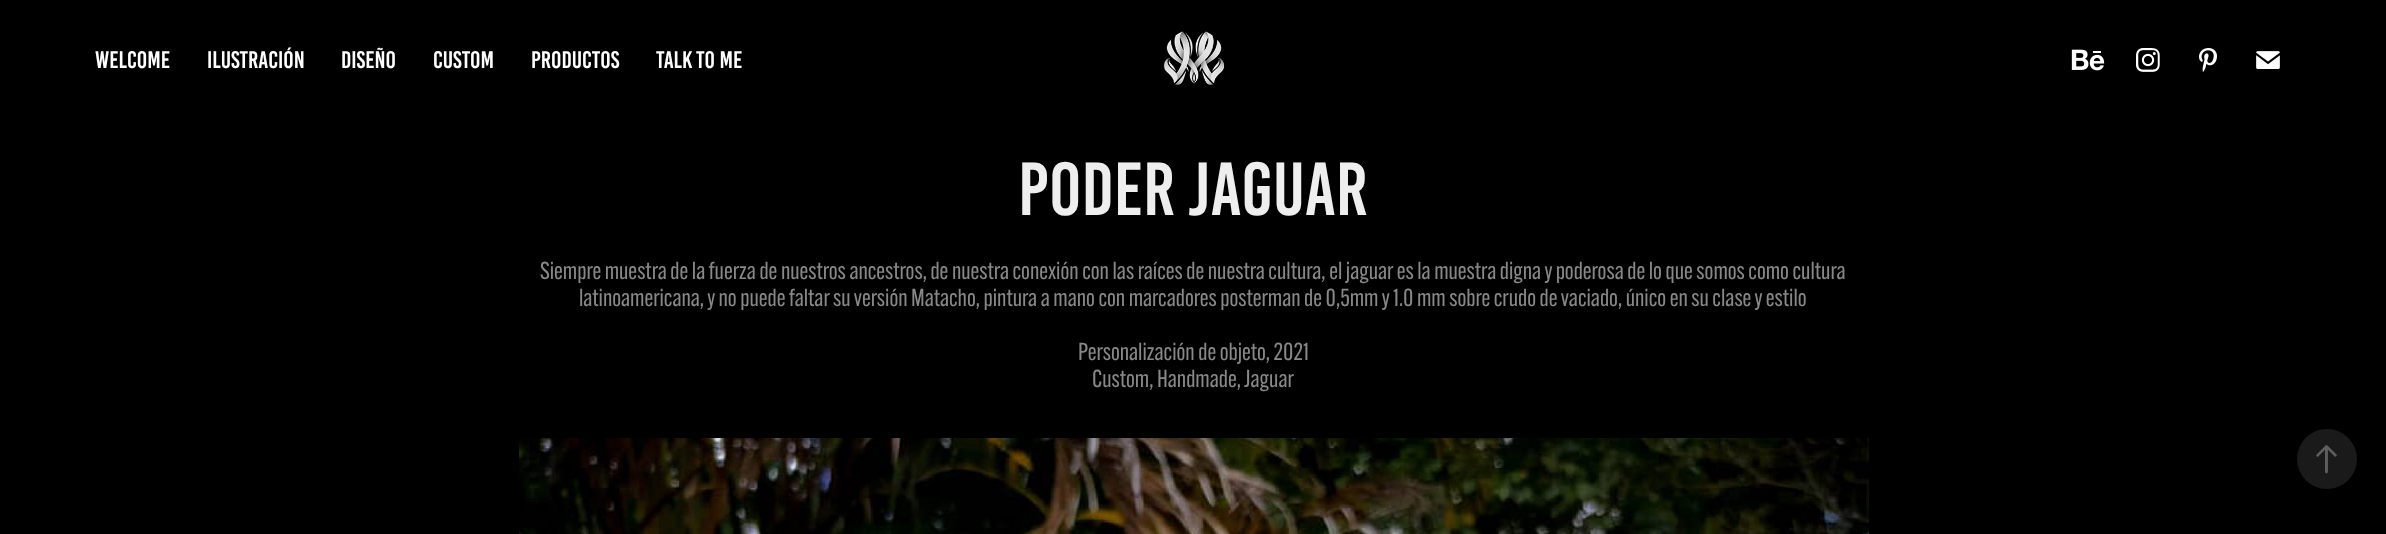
<svg xmlns="http://www.w3.org/2000/svg" width="2386" height="534" viewBox="0 0 2386 534">
  <rect width="100%" height="100%" fill="#000000"/>
  <text x="95" y="68" font-family="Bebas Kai" font-size="24" fill="#ffffff">WELCOME</text>
  <text x="207" y="68" font-family="Bebas Kai" font-size="24" fill="#ffffff">ILUSTRACIÓN</text>
  <text x="341" y="68" font-family="Bebas Kai" font-size="24" fill="#ffffff">DISEÑO</text>
  <text x="433" y="68" font-family="Bebas Kai" font-size="24" fill="#ffffff">CUSTOM</text>
  <text x="531" y="68" font-family="Bebas Kai" font-size="24" fill="#ffffff">PRODUCTOS</text>
  <text x="656" y="68" font-family="Bebas Kai" font-size="24" fill="#ffffff">TALK TO ME</text>
  <image x="1163" y="31" width="62" height="54" href="img1.png"/>
  <image x="2071" y="49" width="34" height="22" href="img2.png"/>
  <image x="2136" y="48" width="24" height="24" href="img3.png"/>
  <image x="2199" y="48" width="18" height="24" href="img4.png"/>
  <image x="2256" y="51" width="24" height="18" href="img5.png"/>
  <text x="1018" y="215" font-family="Bebas Kai" font-size="75" fill="#eeeeee">Poder Jaguar</text>
  <text x="540" y="279" font-family="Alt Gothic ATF" font-size="24" fill="#888888">Siempre muestra de la fuerza de nuestros ancestros, de nuestra conexión con las raíces de nuestra cultura, el jaguar es la muestra digna y poderosa de lo que somos como cultura</text>
  <text x="579" y="306" font-family="Alt Gothic ATF" font-size="24" fill="#888888">latinoamericana, y no puede faltar su versión Matacho, pintura a mano con marcadores posterman de 0,5mm y 1.0 mm sobre crudo de vaciado, único en su clase y estilo</text>
  <text x="1078" y="360" font-family="Alt Gothic ATF" font-size="24" fill="#888888">Personalización de objeto, 2021</text>
  <text x="1092" y="387" font-family="Alt Gothic ATF" font-size="24" fill="#888888">Custom, Handmade, Jaguar</text>
  <image x="519" y="438" width="1350" height="96" href="img6.png"/>
  <circle cx="2327" cy="459" r="30" fill="#1a1a1a"/>
  <image x="2316" y="445" width="21" height="29" href="img7.png"/>
</svg>
